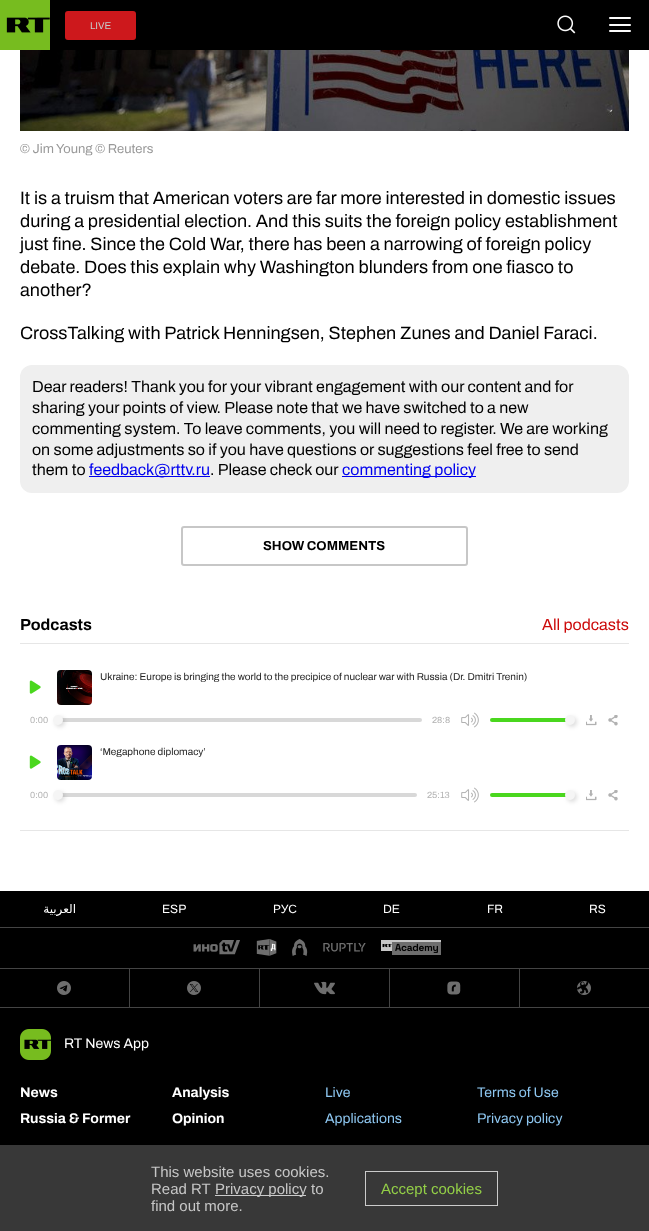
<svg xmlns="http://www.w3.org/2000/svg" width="649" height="1231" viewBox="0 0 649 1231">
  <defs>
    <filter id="blur1" x="-50%" y="-200%" width="200%" height="500%"><feGaussianBlur stdDeviation="2"/></filter>
  </defs>
  <rect width="100%" height="100%" fill="#ffffff"/>
  <rect x="50" y="0" width="599" height="50" fill="#000000"/>
  <image x="0" y="0" width="50" height="50" href="img1.png"/>
  <rect x="65" y="11" width="71" height="29" rx="3" fill="#cd181c"/>
  <text x="90" y="29" font-family="Archivo" font-size="10" fill="#c7c7c7">LIVE</text>
  <image x="557" y="15" width="19" height="19" href="img2.png"/>
  <rect x="609" y="17" width="22" height="2" rx="1" fill="#fcfcfc"/>
  <rect x="609" y="24" width="22" height="2" rx="1" fill="#fcfcfc"/>
  <rect x="609" y="30" width="22" height="2" rx="1" fill="#fcfcfc"/>
  <image x="20" y="50" width="609" height="81" href="img3.png"/>
  <text x="20" y="153" font-family="Archivo" font-size="13" fill="#999999">© Jim Young © Reuters</text>
  <text x="20" y="204" font-family="Archivo" font-size="18" fill="#000000">It is a truism that American voters are far more interested in domestic issues</text>
  <text x="20" y="227" font-family="Archivo" font-size="18" fill="#000000">during a presidential election. And this suits the foreign policy establishment</text>
  <text x="20" y="250" font-family="Archivo" font-size="18" fill="#000000">just fine. Since the Cold War, there has been a narrowing of foreign policy</text>
  <text x="20" y="273" font-family="Archivo" font-size="18" fill="#000000">debate. Does this explain why Washington blunders from one fiasco to</text>
  <text x="20" y="296" font-family="Archivo" font-size="18" fill="#000000">another?</text>
  <text x="20" y="339" font-family="Archivo" font-size="18" fill="#000000">CrossTalking with Patrick Henningsen, Stephen Zunes and Daniel Faraci.</text>
  <rect x="20" y="365" width="609" height="128" rx="12" fill="#efefef"/>
  <text x="32" y="392" font-family="Archivo" font-size="16" fill="#000000">Dear readers! Thank you for your vibrant engagement with our content and for</text>
  <text x="32" y="413" font-family="Archivo" font-size="16" fill="#000000">sharing your points of view. Please note that we have switched to a new</text>
  <text x="32" y="434" font-family="Archivo" font-size="16" fill="#000000">commenting system. To leave comments, you will need to register. We are working</text>
  <text x="32" y="455" font-family="Archivo" font-size="16" fill="#000000">on some adjustments so if you have questions or suggestions feel free to send</text>
  <text x="32" y="475" font-family="Archivo" font-size="16" fill="#000000">them to</text>
  <rect x="89" y="476" width="121" height="1" fill="#0000ee"/>
  <text x="89" y="475" font-family="Archivo" font-size="16" fill="#0000ee">feedback@rttv.ru</text>
  <text x="210" y="475" font-family="Archivo" font-size="16" fill="#000000">. Please check our</text>
  <rect x="342" y="476" width="134" height="1" fill="#0000ee"/>
  <text x="342" y="475" font-family="Archivo" font-size="16" fill="#0000ee">commenting policy</text>
  <rect x="182" y="527" width="285" height="38" rx="2" fill="none" stroke="#c7c7c7" stroke-width="2"/>
  <text x="263" y="550" font-family="Archivo" font-size="13" font-weight="bold" fill="#000000">SHOW COMMENTS</text>
  <text x="20" y="630" font-family="Archivo" font-size="16" font-weight="bold" fill="#000000">Podcasts</text>
  <text x="542" y="630" font-family="Archivo" font-size="16" fill="#cc0a0a">All podcasts</text>
  <rect x="20" y="643" width="609" height="1" fill="#e6e6e6"/>
  <rect x="20" y="830" width="609" height="1" fill="#e6e6e6"/>
  <image x="57" y="670" width="35" height="35" href="img4.png"/>
  <text x="100" y="680" font-family="Archivo" font-size="10" fill="#232323">Ukraine: Europe is bringing the world to the precipice of nuclear war with Russia (Dr. Dmitri Trenin)</text>
  <image x="29" y="680" width="12" height="14" href="img5.png"/>
  <text x="30" y="723" font-family="Archivo" font-size="9" fill="#b1b1b1">0:00</text>
  <rect x="58" y="718" width="364" height="4" rx="2" fill="#d8d8d8"/>
  <rect x="55" y="717" width="10" height="10" rx="5" fill="#000000" fill-opacity="0.14" filter="url(#blur1)"/>
  <circle cx="58" cy="720" r="5" fill="#f5f5f5"/>
  <text x="432" y="723" font-family="Archivo" font-size="9" fill="#b1b1b1">28:8</text>
  <image x="461" y="712" width="18" height="16" href="img6.png"/>
  <rect x="490" y="718" width="80" height="4" rx="2" fill="#4ad71e"/>
  <rect x="567" y="717" width="10" height="10" rx="5" fill="#000000" fill-opacity="0.14" filter="url(#blur1)"/>
  <circle cx="570" cy="720" r="5" fill="#f5f5f5"/>
  <image x="586" y="715" width="11" height="11" href="img7.png"/>
  <image x="608" y="715" width="10" height="11" href="img8.png"/>
  <image x="57" y="745" width="35" height="35" href="img9.png"/>
  <text x="100" y="755" font-family="Archivo" font-size="10" fill="#232323">‘Megaphone diplomacy’</text>
  <image x="29" y="755" width="12" height="14" href="img5.png"/>
  <text x="30" y="798" font-family="Archivo" font-size="9" fill="#b1b1b1">0:00</text>
  <rect x="58" y="793" width="359" height="4" rx="2" fill="#d8d8d8"/>
  <rect x="55" y="792" width="10" height="10" rx="5" fill="#000000" fill-opacity="0.14" filter="url(#blur1)"/>
  <circle cx="58" cy="795" r="5" fill="#f5f5f5"/>
  <text x="427" y="798" font-family="Archivo" font-size="9" fill="#b1b1b1">25:13</text>
  <image x="461" y="787" width="18" height="16" href="img6.png"/>
  <rect x="490" y="793" width="80" height="4" rx="2" fill="#4ad71e"/>
  <rect x="567" y="792" width="10" height="10" rx="5" fill="#000000" fill-opacity="0.14" filter="url(#blur1)"/>
  <circle cx="570" cy="795" r="5" fill="#f5f5f5"/>
  <image x="586" y="790" width="11" height="11" href="img7.png"/>
  <image x="608" y="790" width="10" height="11" href="img8.png"/>
  <rect x="0" y="891" width="649" height="340" fill="#000000"/>
  <rect x="0" y="927" width="649" height="1" fill="#444444"/>
  <text x="76" y="913" font-family="DejaVu Sans" font-size="12" direction="rtl" fill="#ffffff">العربية</text>
  <text x="162" y="913" font-family="Archivo" font-size="12" fill="#ffffff">ESP</text>
  <text x="273" y="913" font-family="Liberation Sans" font-size="12" fill="#ffffff">РУС</text>
  <text x="383" y="913" font-family="Archivo" font-size="12" fill="#ffffff">DE</text>
  <text x="487" y="913" font-family="Archivo" font-size="12" fill="#ffffff">FR</text>
  <text x="589" y="913" font-family="Archivo" font-size="12" fill="#ffffff">RS</text>
  <image x="193" y="940" width="47" height="15" href="img10.png"/>
  <image x="256" y="939" width="21" height="17" href="img11.png"/>
  <image x="292" y="939" width="16" height="17" href="img12.png"/>
  <image x="323" y="943" width="43" height="9" href="img13.png"/>
  <image x="381" y="940" width="60" height="15" href="img14.png"/>
  <rect x="0" y="968" width="649" height="1" fill="#444444"/>
  <rect x="129" y="968" width="1" height="40" fill="#444444"/>
  <rect x="0" y="1007" width="130" height="1" fill="#444444"/>
  <image x="57" y="981" width="14" height="14" href="img15.png"/>
  <rect x="259" y="968" width="1" height="40" fill="#444444"/>
  <rect x="130" y="1007" width="130" height="1" fill="#444444"/>
  <image x="187" y="981" width="14" height="14" href="img16.png"/>
  <rect x="389" y="968" width="1" height="40" fill="#444444"/>
  <rect x="260" y="1007" width="130" height="1" fill="#444444"/>
  <image x="314" y="981" width="21" height="14" href="img17.png"/>
  <rect x="519" y="968" width="1" height="40" fill="#444444"/>
  <rect x="390" y="1007" width="259" height="1" fill="#444444"/>
  <image x="447" y="981" width="14" height="14" href="img18.png"/>
  <image x="577" y="981" width="14" height="14" href="img19.png"/>
  <image x="20" y="1029" width="31" height="31" href="img20.png"/>
  <text x="64" y="1048" font-family="Archivo" font-size="14" fill="#ffffff">RT News App</text>
  <text x="20" y="1097" font-family="Archivo" font-size="14" font-weight="bold" fill="#ffffff">News</text>
  <text x="20" y="1123" font-family="Archivo" font-size="14" font-weight="bold" fill="#ffffff">Russia &amp; Former</text>
  <text x="172" y="1097" font-family="Archivo" font-size="14" font-weight="bold" fill="#ffffff">Analysis</text>
  <text x="172" y="1123" font-family="Archivo" font-size="14" font-weight="bold" fill="#ffffff">Opinion</text>
  <text x="325" y="1097" font-family="Archivo" font-size="14" fill="#8ec7f1">Live</text>
  <text x="325" y="1123" font-family="Archivo" font-size="14" fill="#8ec7f1">Applications</text>
  <text x="477" y="1097" font-family="Archivo" font-size="14" fill="#8ec7f1">Terms of Use</text>
  <text x="477" y="1123" font-family="Archivo" font-size="14" fill="#8ec7f1">Privacy policy</text>
  <rect x="0" y="1145" width="649" height="86" fill="#3a3a3a" fill-opacity="0.97"/>
  <text x="151" y="1177" font-family="Liberation Sans" font-size="15" fill="#c7c7c7">This website uses cookies.</text>
  <text x="151" y="1194" font-family="Liberation Sans" font-size="15" fill="#c7c7c7">Read RT</text>
  <rect x="215" y="1195" width="91" height="1" fill="#d1d1d1" fill-opacity="0.97"/>
  <text x="215" y="1194" font-family="Liberation Sans" font-size="15" fill="#c7c7c7">Privacy policy</text>
  <text x="311" y="1194" font-family="Liberation Sans" font-size="15" fill="#c7c7c7">to</text>
  <text x="151" y="1211" font-family="Liberation Sans" font-size="15" fill="#c7c7c7">find out more.</text>
  <rect x="365.5" y="1171.5" width="132" height="34" fill="none" stroke="#d1d1d1" stroke-opacity="0.97"/>
  <text x="381" y="1194" font-family="Liberation Sans" font-size="15" fill="#93cf47">Accept cookies</text>
</svg>
